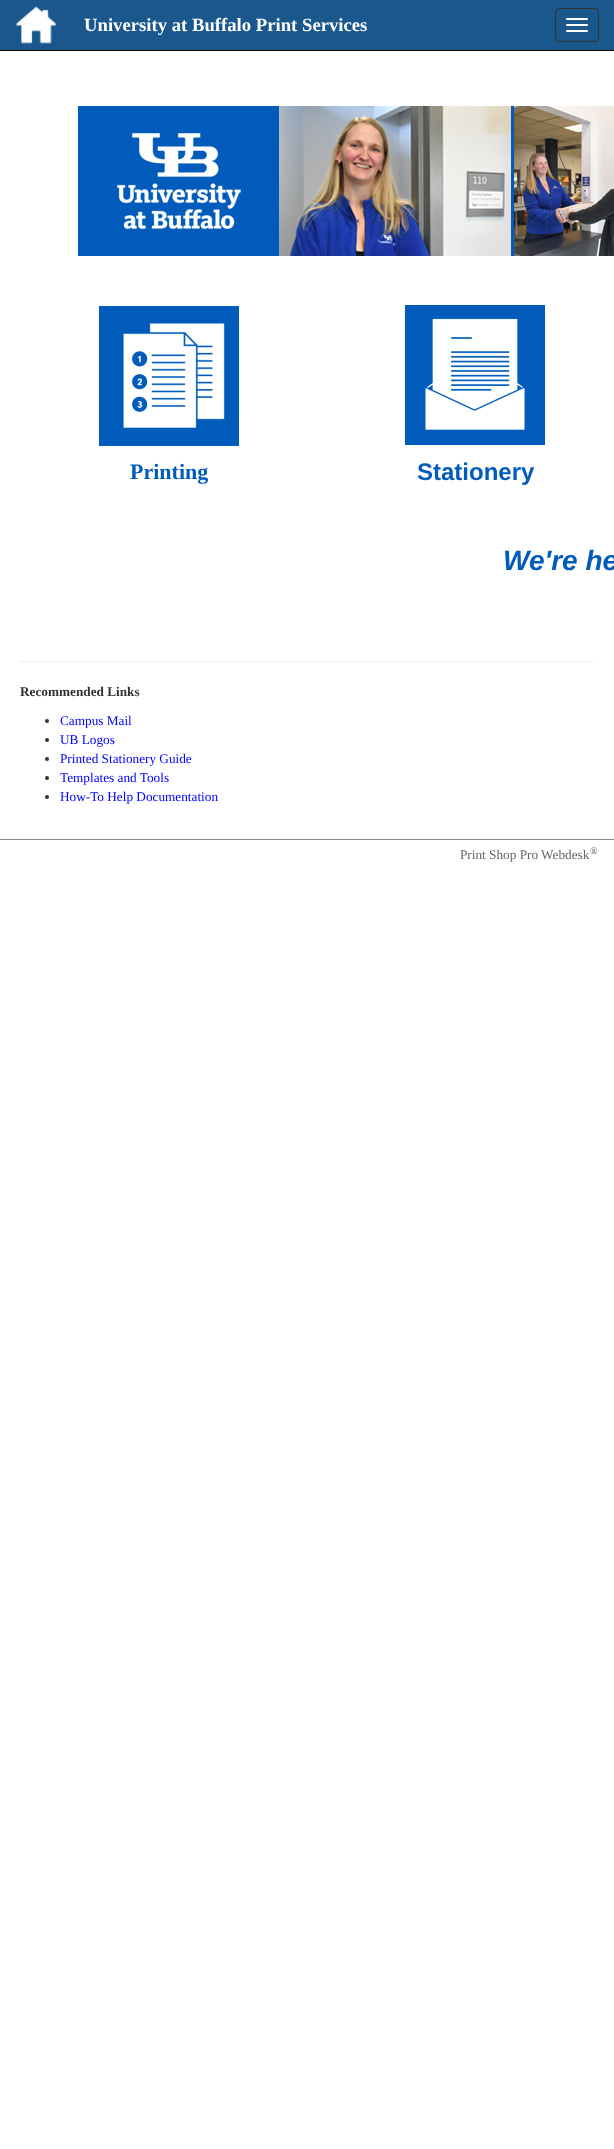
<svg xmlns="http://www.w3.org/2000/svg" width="614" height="2149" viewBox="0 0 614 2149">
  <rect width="100%" height="100%" fill="#ffffff"/>
  <rect x="0" y="0" width="614" height="50" fill="#19578d"/>
  <rect x="0" y="50" width="614" height="1" fill="#080808"/>
  <image x="16" y="6" width="41" height="38" href="img1.png"/>
  <text x="84" y="31" font-family="Liberation Serif" font-size="18.7" font-weight="bold" fill="#ffffff">University at Buffalo Print Services</text>
  <rect x="555.5" y="8.5" width="43" height="33" rx="3.5" fill="none" stroke="#333333"/>
  <rect x="566" y="18" width="22" height="2" rx="1" fill="#ffffff"/>
  <rect x="566" y="24" width="22" height="2" rx="1" fill="#ffffff"/>
  <rect x="566" y="30" width="22" height="2" rx="1" fill="#ffffff"/>
  <image x="78" y="106" width="536" height="150" href="img2.png"/>
  <image x="99" y="306" width="140" height="140" href="img3.png"/>
  <text x="130" y="479" font-family="Liberation Serif" font-size="22" font-weight="bold" fill="#005bbb">Printing</text>
  <image x="405" y="305" width="140" height="140" href="img4.png"/>
  <text x="417" y="480" font-family="Liberation Sans" font-size="24" font-weight="bold" fill="#005bbb">Stationery</text>
  <text x="503" y="570" font-family="Liberation Sans" font-size="28" font-weight="bold" font-style="italic" fill="#005bbb">We're he</text>
  <rect x="20" y="661" width="574" height="1" fill="#eeeeee"/>
  <text x="20" y="696" font-family="Liberation Serif" font-size="13.25" font-weight="bold" fill="#333333">Recommended Links</text>
  <circle cx="47" cy="721" r="2" fill="#333333"/>
  <text x="60" y="725" font-family="Liberation Serif" font-size="13.25" fill="#0000ff">Campus Mail</text>
  <circle cx="47" cy="740" r="2" fill="#333333"/>
  <text x="60" y="744" font-family="Liberation Serif" font-size="13.25" fill="#0000ff">UB Logos</text>
  <circle cx="47" cy="759" r="2" fill="#333333"/>
  <text x="60" y="763" font-family="Liberation Serif" font-size="13.25" fill="#0000ff">Printed Stationery Guide</text>
  <circle cx="47" cy="778" r="2" fill="#333333"/>
  <text x="60" y="782" font-family="Liberation Serif" font-size="13.25" fill="#0000ff">Templates and Tools</text>
  <circle cx="47" cy="797" r="2" fill="#333333"/>
  <text x="60" y="801" font-family="Liberation Serif" font-size="13.25" fill="#0000ff">How-To Help Documentation</text>
  <rect x="0" y="839" width="614" height="1" fill="#888888"/>
  <text x="460" y="859" font-family="Liberation Serif" font-size="13.25" fill="#666666">Print Shop Pro Webdesk</text>
  <text x="590" y="854" font-family="Liberation Serif" font-size="10" fill="#666666">®</text>
</svg>
